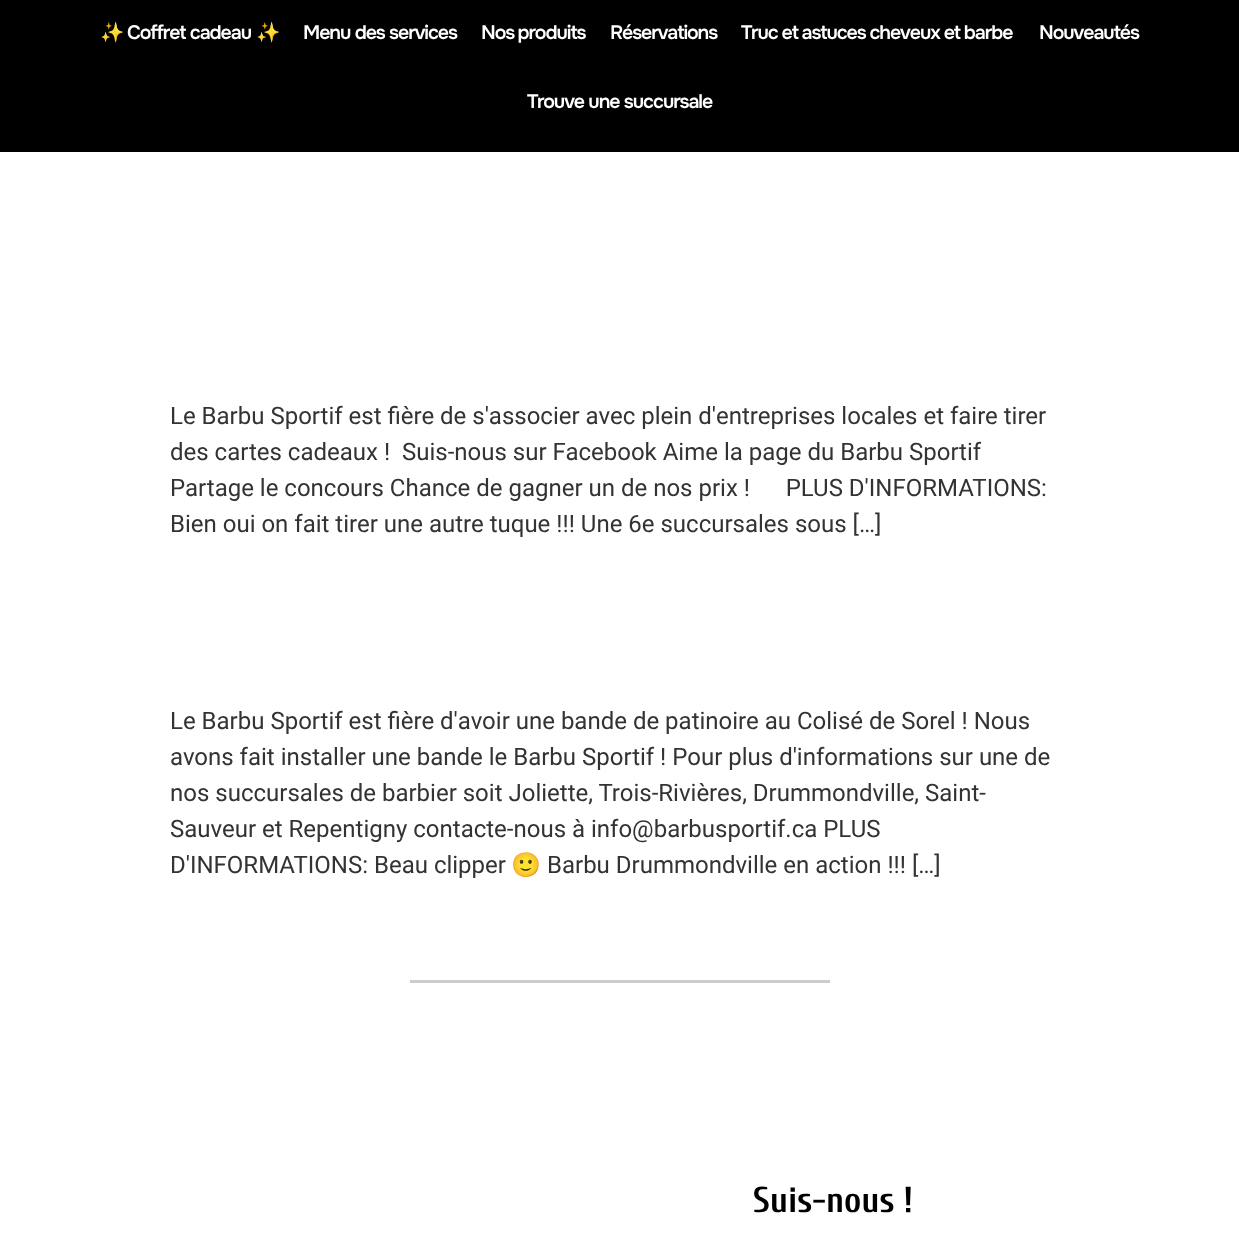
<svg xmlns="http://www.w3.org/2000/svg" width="1239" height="1244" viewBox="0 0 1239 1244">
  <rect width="100%" height="100%" fill="#ffffff"/>
  <rect x="0" y="0" width="1239" height="152" fill="#000000"/>
  <text x="100" y="39" font-family="Noto Color Emoji" font-size="19.5" font-weight="bold" letter-spacing="-1.05" fill="#ffffff">✨</text>
  <text x="127" y="39" font-family="Onest" font-size="19.5" font-weight="600" letter-spacing="-1.05" fill="#ffffff">Coffret cadeau</text>
  <text x="256" y="39" font-family="Noto Color Emoji" font-size="19.5" font-weight="bold" letter-spacing="-1.05" fill="#ffffff">✨</text>
  <text x="303" y="39" font-family="Onest" font-size="19.5" font-weight="600" letter-spacing="-1.05" fill="#ffffff">Menu des services</text>
  <text x="481" y="39" word-spacing="-1" font-family="Onest" font-size="19.5" font-weight="600" letter-spacing="-1.05" fill="#ffffff">Nos produits</text>
  <text x="610" y="39" font-family="Onest" font-size="19.5" font-weight="600" letter-spacing="-1.05" fill="#ffffff">Réservations</text>
  <text x="741" y="39" word-spacing="-0.5" font-family="Onest" font-size="19.5" font-weight="600" letter-spacing="-1.05" fill="#ffffff">Truc et astuces cheveux et barbe</text>
  <text x="1039" y="39" font-family="Onest" font-size="19.5" font-weight="600" letter-spacing="-1.05" fill="#ffffff">Nouveautés</text>
  <text x="527" y="108" font-family="Onest" font-size="19.5" font-weight="600" letter-spacing="-1.05" fill="#ffffff">Trouve une succursale</text>
  <text x="170" y="424" font-family="Roboto" font-size="24" fill="#333333">Le Barbu Sportif est fière de s'associer avec plein d'entreprises locales et faire tirer</text>
  <text x="170" y="460" font-family="Roboto" font-size="24" fill="#333333" xml:space="preserve">des cartes cadeaux !  Suis-nous sur Facebook Aime la page du Barbu Sportif</text>
  <text x="170" y="496" font-family="Roboto" font-size="24" fill="#333333" xml:space="preserve">Partage le concours Chance de gagner un de nos prix !      PLUS D'INFORMATIONS:</text>
  <text x="170" y="532" font-family="Roboto" font-size="24" fill="#333333">Bien oui on fait tirer une autre tuque !!! Une 6e succursales sous […]</text>
  <text x="170" y="729" font-family="Roboto" font-size="24" fill="#333333">Le Barbu Sportif est fière d'avoir une bande de patinoire au Colisé de Sorel ! Nous</text>
  <text x="170" y="765" font-family="Roboto" font-size="24" fill="#333333">avons fait installer une bande le Barbu Sportif ! Pour plus d'informations sur une de</text>
  <text x="170" y="801" font-family="Roboto" font-size="24" fill="#333333">nos succursales de barbier soit Joliette, Trois-Rivières, Drummondville, Saint-</text>
  <text x="170" y="837" font-family="Roboto" font-size="24" fill="#333333">Sauveur et Repentigny contacte-nous à info@barbusportif.ca PLUS</text>
  <text x="170" y="873" font-family="Roboto" font-size="24" fill="#333333">D'INFORMATIONS: Beau clipper</text>
  <text x="511" y="873" font-family="Noto Color Emoji" font-size="24" fill="#333333">🙂</text>
  <text x="547" y="873" font-family="Roboto" font-size="24" fill="#333333">Barbu Drummondville en action !!! […]</text>
  <rect x="410" y="980" width="420" height="3" fill="#cccccc"/>
  <text x="753" y="1212" font-family="Cuprum" font-size="36" font-weight="bold" fill="#000000">Suis-nous !</text>
</svg>
